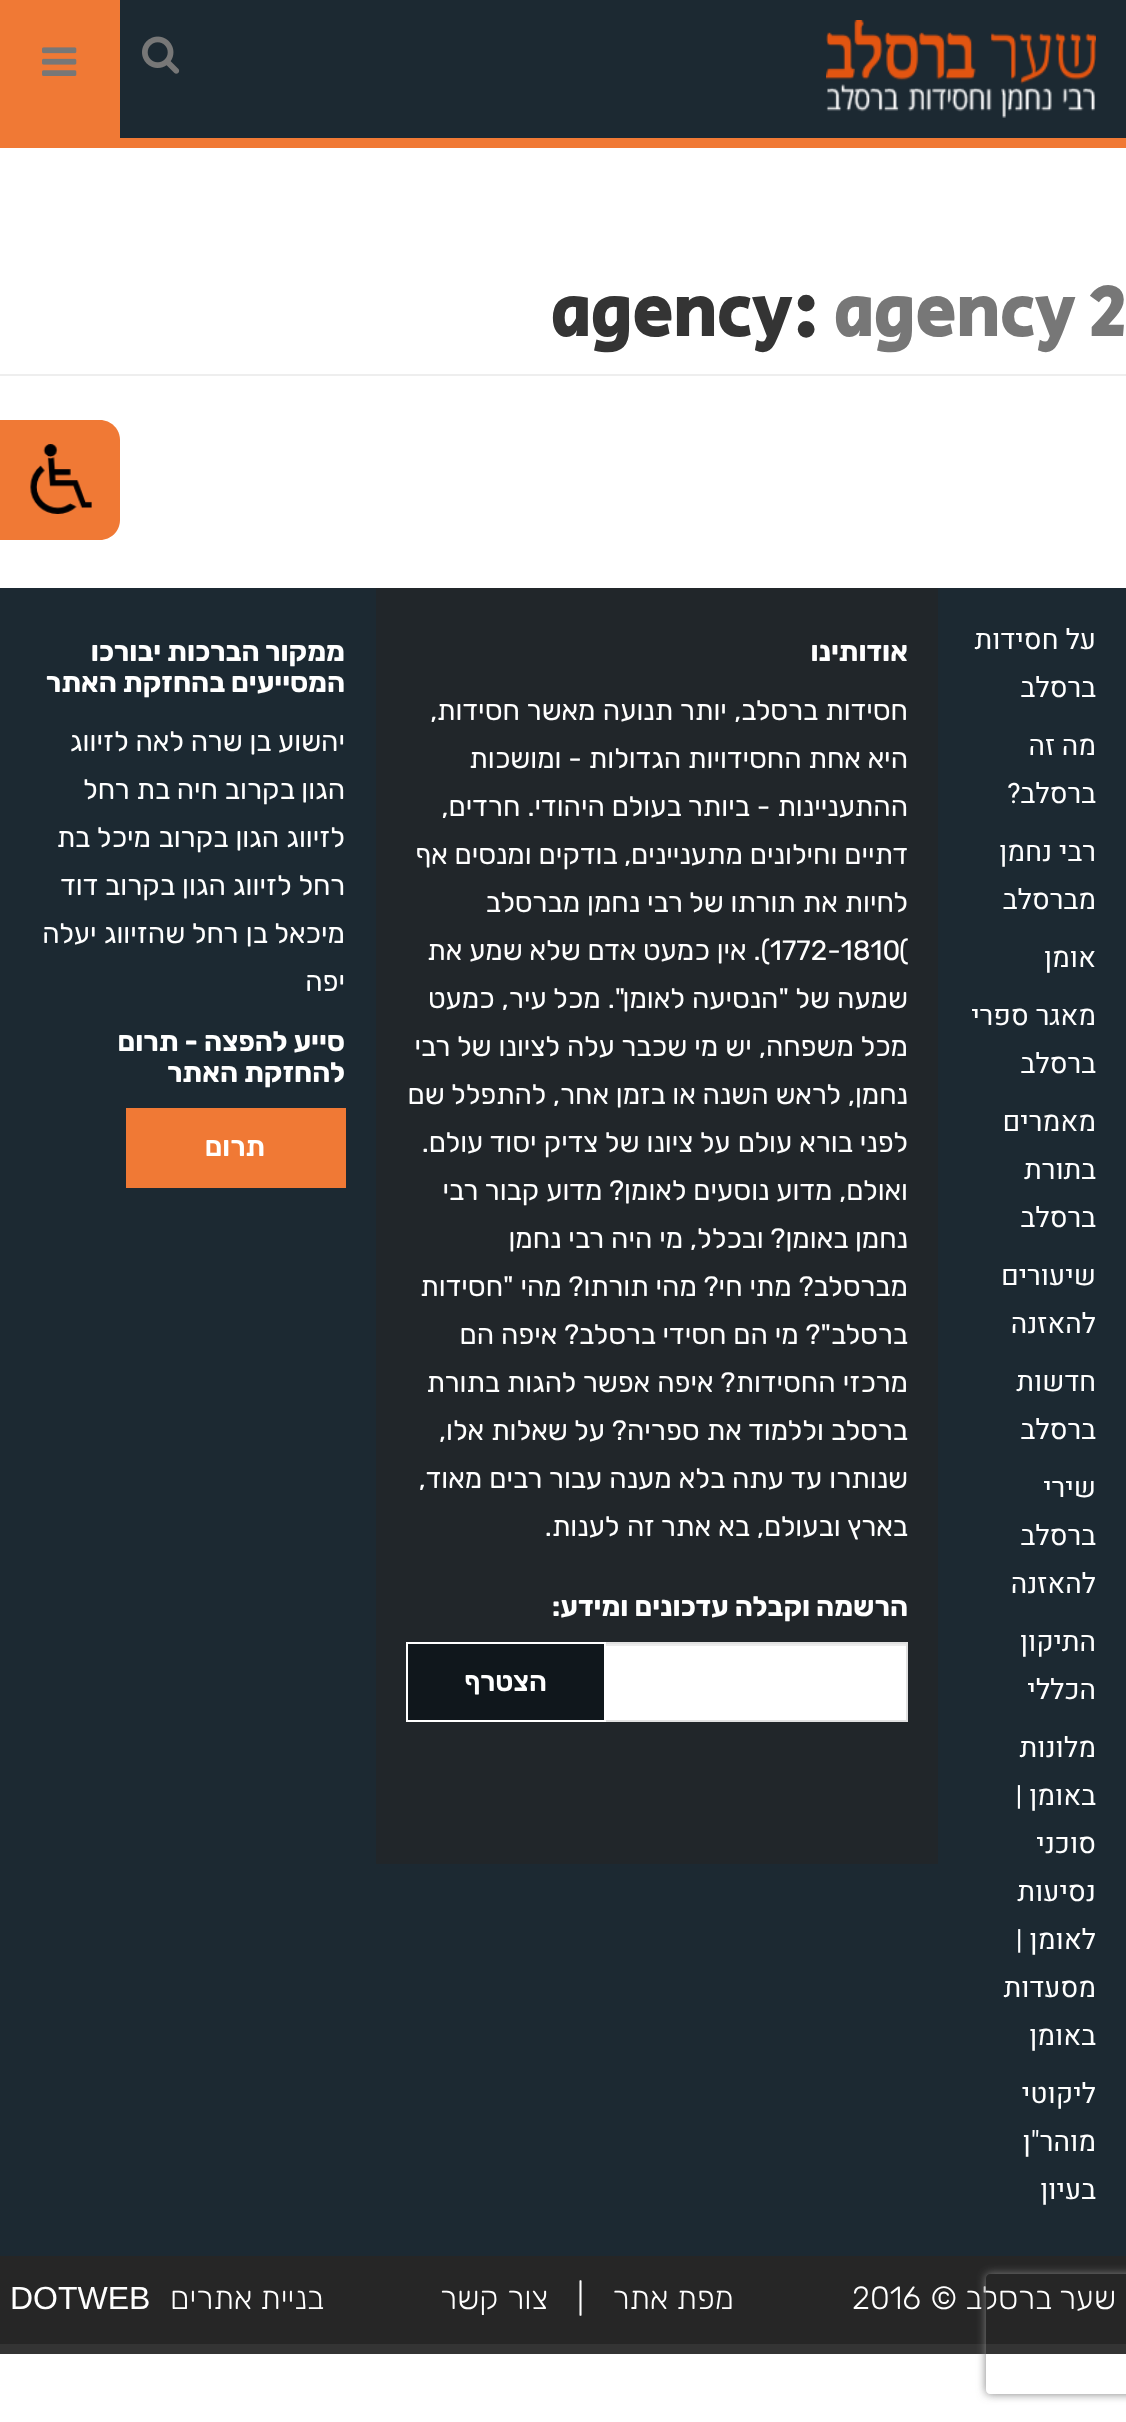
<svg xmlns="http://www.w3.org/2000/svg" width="1126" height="2422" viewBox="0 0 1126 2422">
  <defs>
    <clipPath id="clip1"><path d="M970 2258H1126V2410H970ZM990 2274H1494C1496 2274 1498 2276 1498 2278V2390C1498 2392 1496 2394 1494 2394H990C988 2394 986 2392 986 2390V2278C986 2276 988 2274 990 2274Z" clip-rule="evenodd"/></clipPath>
    <filter id="blur1" x="-50%" y="-200%" width="200%" height="500%"><feGaussianBlur stdDeviation="5"/></filter>
  </defs>
  <rect width="100%" height="100%" fill="#ffffff"/>
  <rect x="120" y="0" width="1006" height="138" fill="#1c2932"/>
  <rect x="0" y="138" width="1126" height="10" fill="#f07935"/>
  <image x="826" y="20" width="270" height="98" href="img1.png"/>
  <image x="142" y="36" width="38" height="38" href="img2.png"/>
  <rect x="0" y="0" width="120" height="138" fill="#f07935"/>
  <image x="42" y="47" width="35" height="29" href="img3.png"/>
  <rect x="0" y="374" width="1126" height="2" fill="#eeeeee"/>
  <text x="833" y="336" font-family="Secular One" font-size="72" font-weight="bold" fill="#777777">agency 2</text>
  <text x="550" y="336" font-family="Secular One" font-size="72" font-weight="bold" fill="#343434">agency:</text>
  <rect x="0" y="588" width="1126" height="1668" fill="#1c2932"/>
  <text x="1096" y="649" font-family="Heebo" font-size="28" direction="rtl" fill="#ffffff">על חסידות</text>
  <text x="1096" y="697" font-family="Heebo" font-size="28" direction="rtl" fill="#ffffff">ברסלב</text>
  <text x="1096" y="755" font-family="Heebo" font-size="28" direction="rtl" fill="#ffffff">מה זה</text>
  <text x="1096" y="803" font-family="Heebo" font-size="28" direction="rtl" fill="#ffffff">ברסלב?</text>
  <text x="1096" y="861" font-family="Heebo" font-size="28" direction="rtl" fill="#ffffff">רבי נחמן</text>
  <text x="1096" y="909" font-family="Heebo" font-size="28" direction="rtl" fill="#ffffff">מברסלב</text>
  <text x="1096" y="967" font-family="Heebo" font-size="28" direction="rtl" fill="#ffffff">אומן</text>
  <text x="1096" y="1025" font-family="Heebo" font-size="28" direction="rtl" fill="#ffffff">מאגר ספרי</text>
  <text x="1096" y="1073" font-family="Heebo" font-size="28" direction="rtl" fill="#ffffff">ברסלב</text>
  <text x="1096" y="1131" font-family="Heebo" font-size="28" direction="rtl" fill="#ffffff">מאמרים</text>
  <text x="1096" y="1179" font-family="Heebo" font-size="28" direction="rtl" fill="#ffffff">בתורת</text>
  <text x="1096" y="1227" font-family="Heebo" font-size="28" direction="rtl" fill="#ffffff">ברסלב</text>
  <text x="1096" y="1285" font-family="Heebo" font-size="28" direction="rtl" fill="#ffffff">שיעורים</text>
  <text x="1096" y="1333" font-family="Heebo" font-size="28" direction="rtl" fill="#ffffff">להאזנה</text>
  <text x="1096" y="1391" font-family="Heebo" font-size="28" direction="rtl" fill="#ffffff">חדשות</text>
  <text x="1096" y="1439" font-family="Heebo" font-size="28" direction="rtl" fill="#ffffff">ברסלב</text>
  <text x="1096" y="1497" font-family="Heebo" font-size="28" direction="rtl" fill="#ffffff">שירי</text>
  <text x="1096" y="1545" font-family="Heebo" font-size="28" direction="rtl" fill="#ffffff">ברסלב</text>
  <text x="1096" y="1593" font-family="Heebo" font-size="28" direction="rtl" fill="#ffffff">להאזנה</text>
  <text x="1096" y="1651" font-family="Heebo" font-size="28" direction="rtl" fill="#ffffff">התיקון</text>
  <text x="1096" y="1699" font-family="Heebo" font-size="28" direction="rtl" fill="#ffffff">הכללי</text>
  <text x="1096" y="1757" font-family="Heebo" font-size="28" direction="rtl" fill="#ffffff">מלונות</text>
  <text x="1096" y="1805" font-family="Heebo" font-size="28" direction="rtl" fill="#ffffff">באומן |</text>
  <text x="1096" y="1853" font-family="Heebo" font-size="28" direction="rtl" fill="#ffffff">סוכני</text>
  <text x="1096" y="1901" font-family="Heebo" font-size="28" direction="rtl" fill="#ffffff">נסיעות</text>
  <text x="1096" y="1949" font-family="Heebo" font-size="28" direction="rtl" fill="#ffffff">לאומן |</text>
  <text x="1096" y="1997" font-family="Heebo" font-size="28" direction="rtl" fill="#ffffff">מסעדות</text>
  <text x="1096" y="2045" font-family="Heebo" font-size="28" direction="rtl" fill="#ffffff">באומן</text>
  <text x="1096" y="2103" font-family="Heebo" font-size="28" direction="rtl" fill="#ffffff">ליקוטי</text>
  <text x="1096" y="2151" font-family="Heebo" font-size="28" direction="rtl" fill="#ffffff">מוהר"ן</text>
  <text x="1096" y="2199" font-family="Heebo" font-size="28" direction="rtl" fill="#ffffff">בעיון</text>
  <rect x="376" y="588" width="562" height="1276" fill="#21262a"/>
  <text x="908" y="661" font-family="Rubik" font-size="28" font-weight="bold" direction="rtl" fill="#ffffff">אודותינו</text>
  <text x="908" y="720" word-spacing="0.5" font-family="Rubik" font-size="28" direction="rtl" fill="#ffffff">חסידות ברסלב, יותר תנועה מאשר חסידות,</text>
  <text x="908" y="768" font-family="Rubik" font-size="28" direction="rtl" fill="#ffffff">היא אחת החסידויות הגדולות - ומושכות</text>
  <text x="908" y="816" word-spacing="0.25" font-family="Rubik" font-size="28" direction="rtl" fill="#ffffff">ההתעניינות - ביותר בעולם היהודי. חרדים,</text>
  <text x="908" y="864" font-family="Rubik" font-size="28" direction="rtl" fill="#ffffff">דתיים וחילונים מתעניינים, בודקים ומנסים אף</text>
  <text x="908" y="912" font-family="Rubik" font-size="28" direction="rtl" fill="#ffffff">לחיות את תורתו של רבי נחמן מברסלב</text>
  <text x="899" y="960" font-family="Rubik" font-size="28" fill="#ffffff">(</text>
  <text x="770" y="960" font-family="Rubik" font-size="28" fill="#ffffff">1772-1810</text>
  <text x="770" y="960" font-family="Rubik" font-size="28" direction="rtl" fill="#ffffff">). אין כמעט אדם שלא שמע את</text>
  <text x="908" y="1008" word-spacing="0.25" font-family="Rubik" font-size="28" direction="rtl" fill="#ffffff">שמעה של "הנסיעה לאומן". מכל עיר, כמעט</text>
  <text x="908" y="1056" word-spacing="0.25" font-family="Rubik" font-size="28" direction="rtl" fill="#ffffff">מכל משפחה, יש מי שכבר עלה לציונו של רבי</text>
  <text x="908" y="1104" font-family="Rubik" font-size="28" direction="rtl" fill="#ffffff">נחמן, לראש השנה או בזמן אחר, להתפלל שם</text>
  <text x="908" y="1152" word-spacing="0.25" font-family="Rubik" font-size="28" direction="rtl" fill="#ffffff">לפני בורא עולם על ציונו של צדיק יסוד עולם.</text>
  <text x="908" y="1200" font-family="Rubik" font-size="28" direction="rtl" fill="#ffffff">ואולם, מדוע נוסעים לאומן? מדוע קבור רבי</text>
  <text x="908" y="1248" font-family="Rubik" font-size="28" direction="rtl" fill="#ffffff">נחמן באומן? ובכלל, מי היה רבי נחמן</text>
  <text x="908" y="1296" font-family="Rubik" font-size="28" direction="rtl" fill="#ffffff">מברסלב? מתי חי? מהי תורתו? מהי "חסידות</text>
  <text x="908" y="1344" font-family="Rubik" font-size="28" direction="rtl" fill="#ffffff">ברסלב"? מי הם חסידי ברסלב? איפה הם</text>
  <text x="908" y="1392" word-spacing="0.25" font-family="Rubik" font-size="28" direction="rtl" fill="#ffffff">מרכזי החסידות? איפה אפשר להגות בתורת</text>
  <text x="908" y="1440" word-spacing="0.25" font-family="Rubik" font-size="28" direction="rtl" fill="#ffffff">ברסלב וללמוד את ספריה? על שאלות אלו,</text>
  <text x="908" y="1488" word-spacing="0.25" font-family="Rubik" font-size="28" direction="rtl" fill="#ffffff">שנותרו עד עתה בלא מענה עבור רבים מאוד,</text>
  <text x="908" y="1536" word-spacing="0.5" font-family="Rubik" font-size="28" direction="rtl" fill="#ffffff">בארץ ובעולם, בא אתר זה לענות.</text>
  <text x="908" y="1616" font-family="Rubik" font-size="28" font-weight="bold" direction="rtl" fill="#ffffff">הרשמה וקבלה עדכונים ומידע:</text>
  <rect x="606" y="1646" width="300" height="74" fill="#ffffff"/>
  <rect x="606" y="1644" width="300" height="2" fill="#ececec"/>
  <rect x="407" y="1643" width="500" height="78" fill="none" stroke="#e1e1e1" stroke-width="2"/>
  <rect x="407" y="1643" width="198" height="78" fill="#10171c" stroke="#ffffff" stroke-width="2"/>
  <text x="547" y="1691" font-family="Rubik" font-size="28" font-weight="600" direction="rtl" fill="#ffffff">הצטרף</text>
  <text x="345" y="661" font-family="Rubik" font-size="28" font-weight="bold" direction="rtl" fill="#ffffff">ממקור הברכות יבורכו</text>
  <text x="345" y="692" font-family="Rubik" font-size="28" font-weight="bold" direction="rtl" fill="#ffffff">המסייעים בהחזקת האתר</text>
  <text x="345" y="751" font-family="Rubik" font-size="28" direction="rtl" fill="#ffffff">יהשוע בן שרה לאה לזיווג</text>
  <text x="345" y="799" font-family="Rubik" font-size="28" direction="rtl" fill="#ffffff">הגון בקרוב חיה בת רחל</text>
  <text x="345" y="847" word-spacing="0.5" font-family="Rubik" font-size="28" direction="rtl" fill="#ffffff">לזיווג הגון בקרוב מיכל בת</text>
  <text x="345" y="895" word-spacing="0.5" font-family="Rubik" font-size="28" direction="rtl" fill="#ffffff">רחל לזיווג הגון בקרוב דוד</text>
  <text x="345" y="943" word-spacing="0.5" font-family="Rubik" font-size="28" direction="rtl" fill="#ffffff">מיכאל בן רחל שהזיווג יעלה</text>
  <text x="345" y="991" font-family="Rubik" font-size="28" direction="rtl" fill="#ffffff">יפה</text>
  <text x="345" y="1051" font-family="Rubik" font-size="28" font-weight="bold" direction="rtl" fill="#ffffff">סייע להפצה - תרום</text>
  <text x="345" y="1082" font-family="Rubik" font-size="28" font-weight="bold" direction="rtl" fill="#ffffff">להחזקת האתר</text>
  <rect x="126" y="1108" width="220" height="80" fill="#f07935"/>
  <text x="265" y="1156" font-family="Rubik" font-size="28" font-weight="600" direction="rtl" fill="#ffffff">תרום</text>
  <rect x="0" y="2256" width="1126" height="88" fill="#262626"/>
  <rect x="0" y="2344" width="1126" height="10" fill="#343434"/>
  <text x="1116" y="2309" font-family="Rubik" font-size="32" font-weight="300" direction="rtl" fill="#ffffff">שער ברסלב ©</text>
  <text x="852" y="2309" font-family="Rubik" font-size="32" font-weight="300" fill="#ffffff">2016</text>
  <text x="734" y="2309" font-family="Rubik" font-size="32" font-weight="300" direction="rtl" fill="#ffffff">מפת אתר</text>
  <text x="577" y="2309" font-family="Rubik" font-size="32" font-weight="300" fill="#ffffff">|</text>
  <text x="548" y="2309" word-spacing="1" font-family="Rubik" font-size="32" font-weight="300" direction="rtl" fill="#ffffff">צור קשר</text>
  <text x="324" y="2309" font-family="Rubik" font-size="32" font-weight="300" direction="rtl" fill="#ffffff">בניית אתרים</text>
  <text x="10" y="2309" font-family="Liberation Sans" font-size="32" fill="#ffffff">DOTWEB</text>
  <path d="M0 420H100C111 420 120 429 120 440V520C120 531 111 540 100 540H0Z" fill="#f07935"/>
  <image x="30" y="444" width="62" height="70" href="img4.png"/>
  <g clip-path="url(#clip1)">
    <rect x="986" y="2274" width="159" height="120" rx="4" fill="#808080" filter="url(#blur1)"/>
  </g>
</svg>
